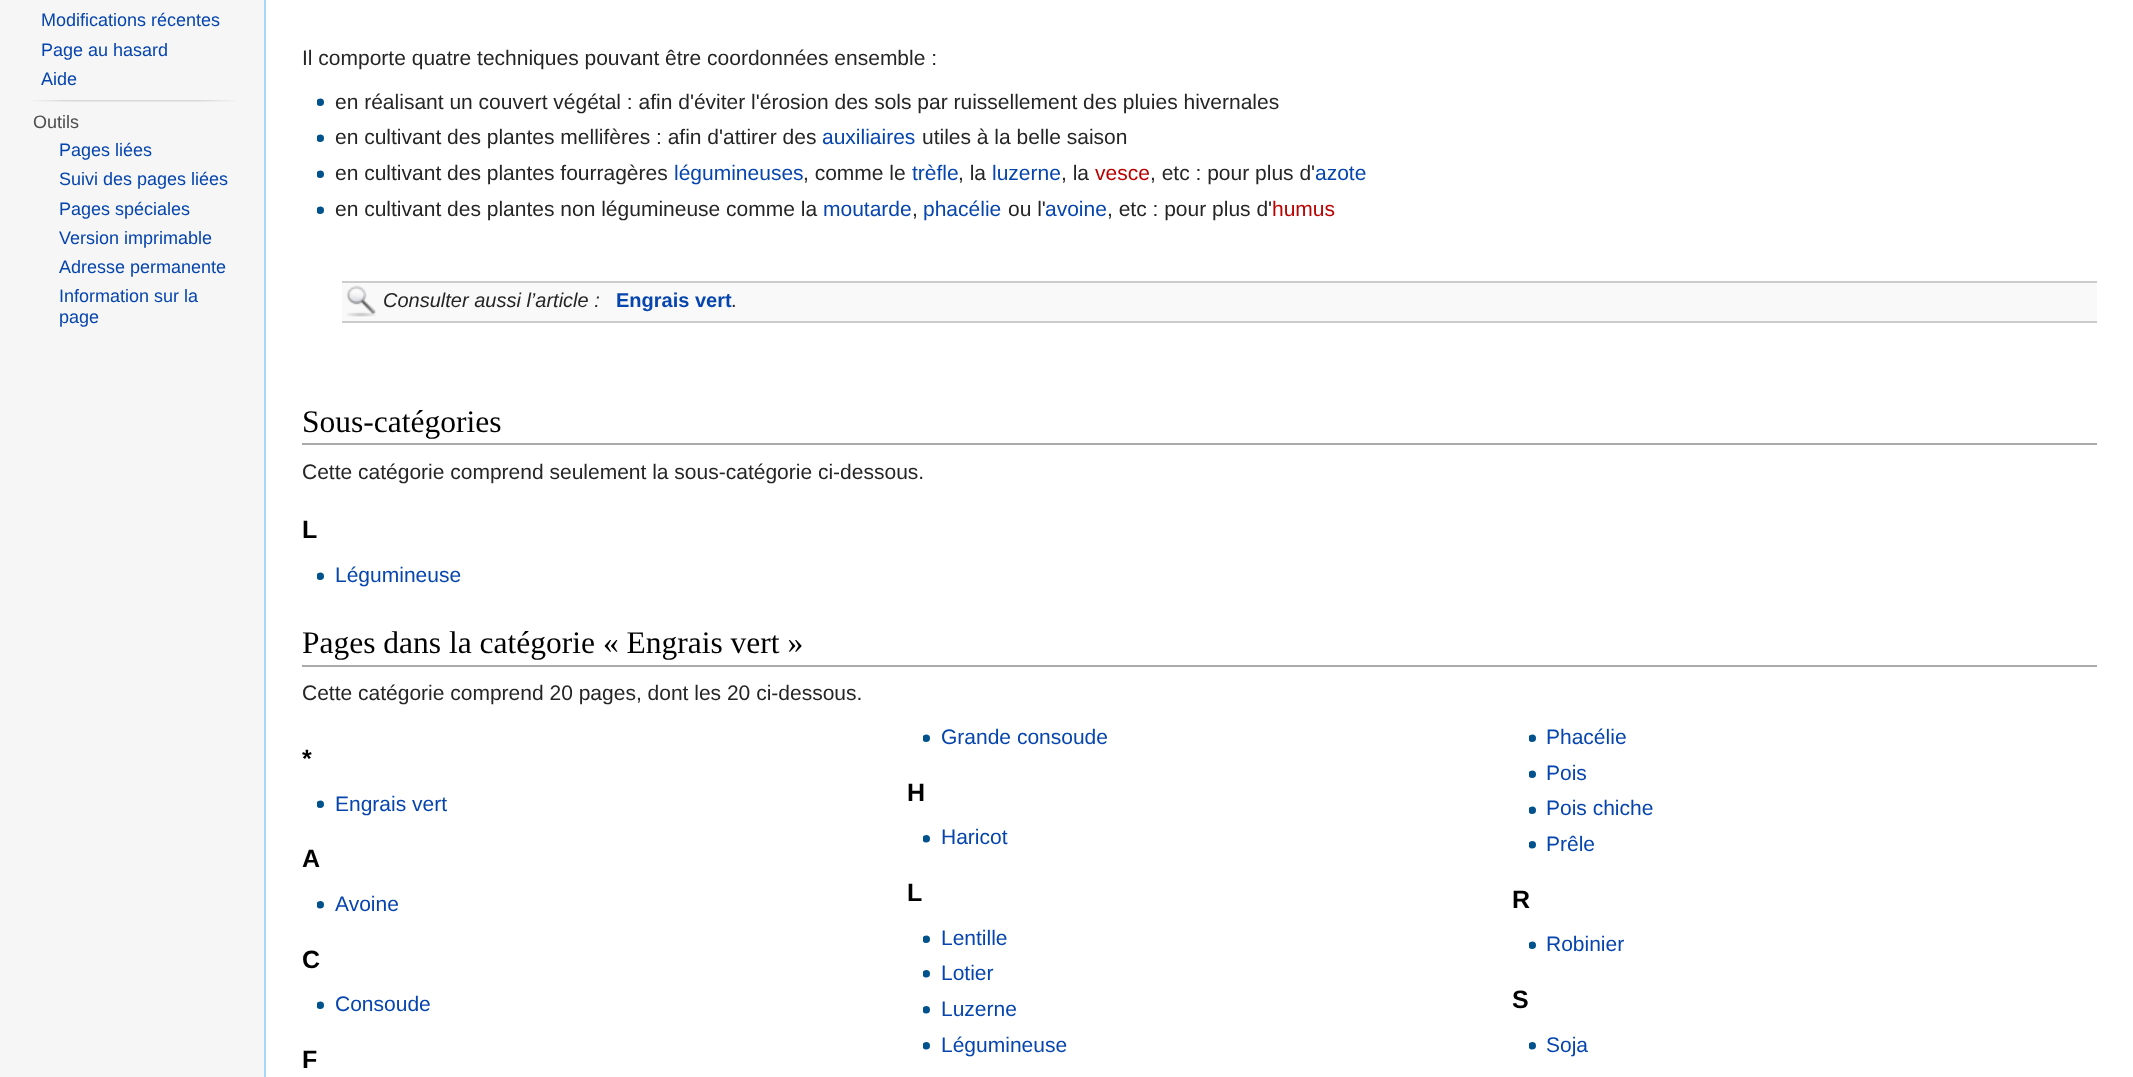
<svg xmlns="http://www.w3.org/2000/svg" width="2133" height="1077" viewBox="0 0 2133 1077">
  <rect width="100%" height="100%" fill="#f6f6f6"/>
  <text x="41" y="26" font-family="Liberation Sans" font-size="18" fill="#0645ad">Modifications récentes</text>
  <text x="41" y="56" font-family="Liberation Sans" font-size="18" fill="#0645ad">Page au hasard</text>
  <text x="41" y="85" font-family="Liberation Sans" font-size="18" fill="#0645ad">Aide</text>
  <image x="32" y="100" width="204" height="2" href="img1.png"/>
  <text x="33" y="128" font-family="Liberation Sans" font-size="18" fill="#4d4d4d">Outils</text>
  <text x="59" y="156" font-family="Liberation Sans" font-size="18" fill="#0645ad">Pages liées</text>
  <text x="59" y="185" font-family="Liberation Sans" font-size="18" fill="#0645ad">Suivi des pages liées</text>
  <text x="59" y="215" font-family="Liberation Sans" font-size="18" fill="#0645ad">Pages spéciales</text>
  <text x="59" y="244" font-family="Liberation Sans" font-size="18" fill="#0645ad">Version imprimable</text>
  <text x="59" y="273" font-family="Liberation Sans" font-size="18" fill="#0645ad">Adresse permanente</text>
  <text x="59" y="302" font-family="Liberation Sans" font-size="18" fill="#0645ad">Information sur la</text>
  <text x="59" y="323" font-family="Liberation Sans" font-size="18" fill="#0645ad">page</text>
  <rect x="266" y="0" width="1867" height="1077" fill="#ffffff"/>
  <rect x="264" y="0" width="2" height="1077" fill="#a7d7f9"/>
  <text x="302" y="65" font-family="Liberation Sans" font-size="21" fill="#252525">Il comporte quatre techniques pouvant être coordonnées ensemble :</text>
  <image x="317" y="98" width="7" height="8" href="img2.png"/>
  <text x="335" y="109" font-family="Liberation Sans" font-size="21" fill="#252525">en réalisant un couvert végétal : afin d'éviter l'érosion des sols par ruissellement des pluies hivernales</text>
  <image x="317" y="134" width="7" height="8" href="img2.png"/>
  <text x="335" y="144" font-family="Liberation Sans" font-size="21" fill="#252525">en cultivant des plantes mellifères : afin d'attirer des</text>
  <text x="822" y="144" font-family="Liberation Sans" font-size="21" fill="#0645ad">auxiliaires</text>
  <text x="922" y="144" font-family="Liberation Sans" font-size="21" fill="#252525">utiles à la belle saison</text>
  <image x="317" y="170" width="7" height="8" href="img2.png"/>
  <text x="335" y="180" font-family="Liberation Sans" font-size="21" fill="#252525">en cultivant des plantes fourragères</text>
  <text x="674" y="180" font-family="Liberation Sans" font-size="21" fill="#0645ad">légumineuses</text>
  <text x="803" y="180" font-family="Liberation Sans" font-size="21" fill="#252525">, comme le</text>
  <text x="912" y="180" font-family="Liberation Sans" font-size="21" fill="#0645ad">trèfle</text>
  <text x="958" y="180" font-family="Liberation Sans" font-size="21" fill="#252525">, la</text>
  <text x="992" y="180" font-family="Liberation Sans" font-size="21" fill="#0645ad">luzerne</text>
  <text x="1061" y="180" font-family="Liberation Sans" font-size="21" fill="#252525">, la</text>
  <text x="1095" y="180" font-family="Liberation Sans" font-size="21" fill="#ba0000">vesce</text>
  <text x="1150" y="180" font-family="Liberation Sans" font-size="21" fill="#252525">, etc : pour plus d'</text>
  <text x="1315" y="180" font-family="Liberation Sans" font-size="21" fill="#0645ad">azote</text>
  <image x="317" y="206" width="7" height="8" href="img2.png"/>
  <text x="335" y="216" font-family="Liberation Sans" font-size="21" fill="#252525">en cultivant des plantes non légumineuse comme la</text>
  <text x="823" y="216" font-family="Liberation Sans" font-size="21" fill="#0645ad">moutarde</text>
  <text x="912" y="216" font-family="Liberation Sans" font-size="21" fill="#252525">,</text>
  <text x="923" y="216" font-family="Liberation Sans" font-size="21" fill="#0645ad">phacélie</text>
  <text x="1008" y="216" font-family="Liberation Sans" font-size="21" fill="#252525">ou l'</text>
  <text x="1045" y="216" font-family="Liberation Sans" font-size="21" fill="#0645ad">avoine</text>
  <text x="1107" y="216" font-family="Liberation Sans" font-size="21" fill="#252525">, etc : pour plus d'</text>
  <text x="1272" y="216" font-family="Liberation Sans" font-size="21" fill="#ba0000">humus</text>
  <rect x="342" y="283" width="1755" height="38" fill="#f9f9f9"/>
  <rect x="342" y="281" width="1755" height="2" fill="#cccccc"/>
  <rect x="342" y="321" width="1755" height="2" fill="#cccccc"/>
  <image x="346" y="285" width="30" height="32" href="img3.png"/>
  <text x="383" y="307" font-family="Liberation Sans" font-size="20" font-style="italic" fill="#252525">Consulter aussi l’article :</text>
  <text x="616" y="307" font-family="Liberation Sans" font-size="20" font-weight="bold" fill="#0645ad">Engrais vert</text>
  <text x="731" y="307" font-family="Liberation Sans" font-size="20" fill="#252525">.</text>
  <rect x="302" y="443" width="1795" height="2" fill="#aaaaaa"/>
  <text x="302" y="432" font-family="Liberation Serif" font-size="31.5" fill="#000000">Sous-catégories</text>
  <text x="302" y="479" font-family="Liberation Sans" font-size="21" fill="#252525">Cette catégorie comprend seulement la sous-catégorie ci-dessous.</text>
  <text x="302" y="538" font-family="Liberation Sans" font-size="25" font-weight="bold" fill="#000000">L</text>
  <image x="317" y="572" width="7" height="8" href="img2.png"/>
  <text x="335" y="582" font-family="Liberation Sans" font-size="21" fill="#0645ad">Légumineuse</text>
  <rect x="302" y="665" width="1795" height="2" fill="#aaaaaa"/>
  <text x="302" y="653" font-family="Liberation Serif" font-size="31.5" fill="#000000">Pages dans la catégorie « Engrais vert »</text>
  <text x="302" y="700" font-family="Liberation Sans" font-size="21" fill="#252525">Cette catégorie comprend 20 pages, dont les 20 ci-dessous.</text>
  <text x="302" y="767" font-family="Liberation Sans" font-size="25" font-weight="bold" fill="#000000">*</text>
  <image x="317" y="800" width="7" height="8" href="img2.png"/>
  <text x="335" y="811" font-family="Liberation Sans" font-size="21" fill="#0645ad">Engrais vert</text>
  <image x="923" y="734" width="7" height="8" href="img2.png"/>
  <text x="941" y="744" font-family="Liberation Sans" font-size="21" fill="#0645ad">Grande consoude</text>
  <image x="1529" y="734" width="7" height="8" href="img2.png"/>
  <text x="1546" y="744" font-family="Liberation Sans" font-size="21" fill="#0645ad">Phacélie</text>
  <image x="1529" y="770" width="7" height="8" href="img2.png"/>
  <text x="1546" y="780" font-family="Liberation Sans" font-size="21" fill="#0645ad">Pois</text>
  <image x="1529" y="806" width="7" height="8" href="img2.png"/>
  <text x="1546" y="815" font-family="Liberation Sans" font-size="21" fill="#0645ad">Pois chiche</text>
  <image x="1529" y="841" width="7" height="8" href="img4.png"/>
  <text x="1546" y="851" font-family="Liberation Sans" font-size="21" fill="#0645ad">Prêle</text>
  <text x="907" y="801" font-family="Liberation Sans" font-size="25" font-weight="bold" fill="#000000">H</text>
  <image x="923" y="835" width="7" height="8" href="img4.png"/>
  <text x="941" y="844" font-family="Liberation Sans" font-size="21" fill="#0645ad">Haricot</text>
  <text x="302" y="867" font-family="Liberation Sans" font-size="25" font-weight="bold" fill="#000000">A</text>
  <image x="317" y="901" width="7" height="8" href="img4.png"/>
  <text x="335" y="911" font-family="Liberation Sans" font-size="21" fill="#0645ad">Avoine</text>
  <text x="907" y="901" font-family="Liberation Sans" font-size="25" font-weight="bold" fill="#000000">L</text>
  <image x="923" y="935" width="7" height="8" href="img2.png"/>
  <text x="941" y="945" font-family="Liberation Sans" font-size="21" fill="#0645ad">Lentille</text>
  <image x="923" y="970" width="7" height="8" href="img4.png"/>
  <text x="941" y="980" font-family="Liberation Sans" font-size="21" fill="#0645ad">Lotier</text>
  <image x="923" y="1006" width="7" height="8" href="img4.png"/>
  <text x="941" y="1016" font-family="Liberation Sans" font-size="21" fill="#0645ad">Luzerne</text>
  <image x="923" y="1042" width="7" height="8" href="img4.png"/>
  <text x="941" y="1052" font-family="Liberation Sans" font-size="21" fill="#0645ad">Légumineuse</text>
  <text x="1512" y="908" font-family="Liberation Sans" font-size="25" font-weight="bold" fill="#000000">R</text>
  <image x="1529" y="941" width="7" height="8" href="img2.png"/>
  <text x="1546" y="951" font-family="Liberation Sans" font-size="21" fill="#0645ad">Robinier</text>
  <text x="302" y="968" font-family="Liberation Sans" font-size="25" font-weight="bold" fill="#000000">C</text>
  <image x="317" y="1001" width="7" height="8" href="img2.png"/>
  <text x="335" y="1011" font-family="Liberation Sans" font-size="21" fill="#0645ad">Consoude</text>
  <text x="1512" y="1008" font-family="Liberation Sans" font-size="25" font-weight="bold" fill="#000000">S</text>
  <image x="1529" y="1042" width="7" height="8" href="img4.png"/>
  <text x="1546" y="1052" font-family="Liberation Sans" font-size="21" fill="#0645ad">Soja</text>
  <text x="302" y="1068" font-family="Liberation Sans" font-size="25" font-weight="bold" fill="#000000">F</text>
</svg>
